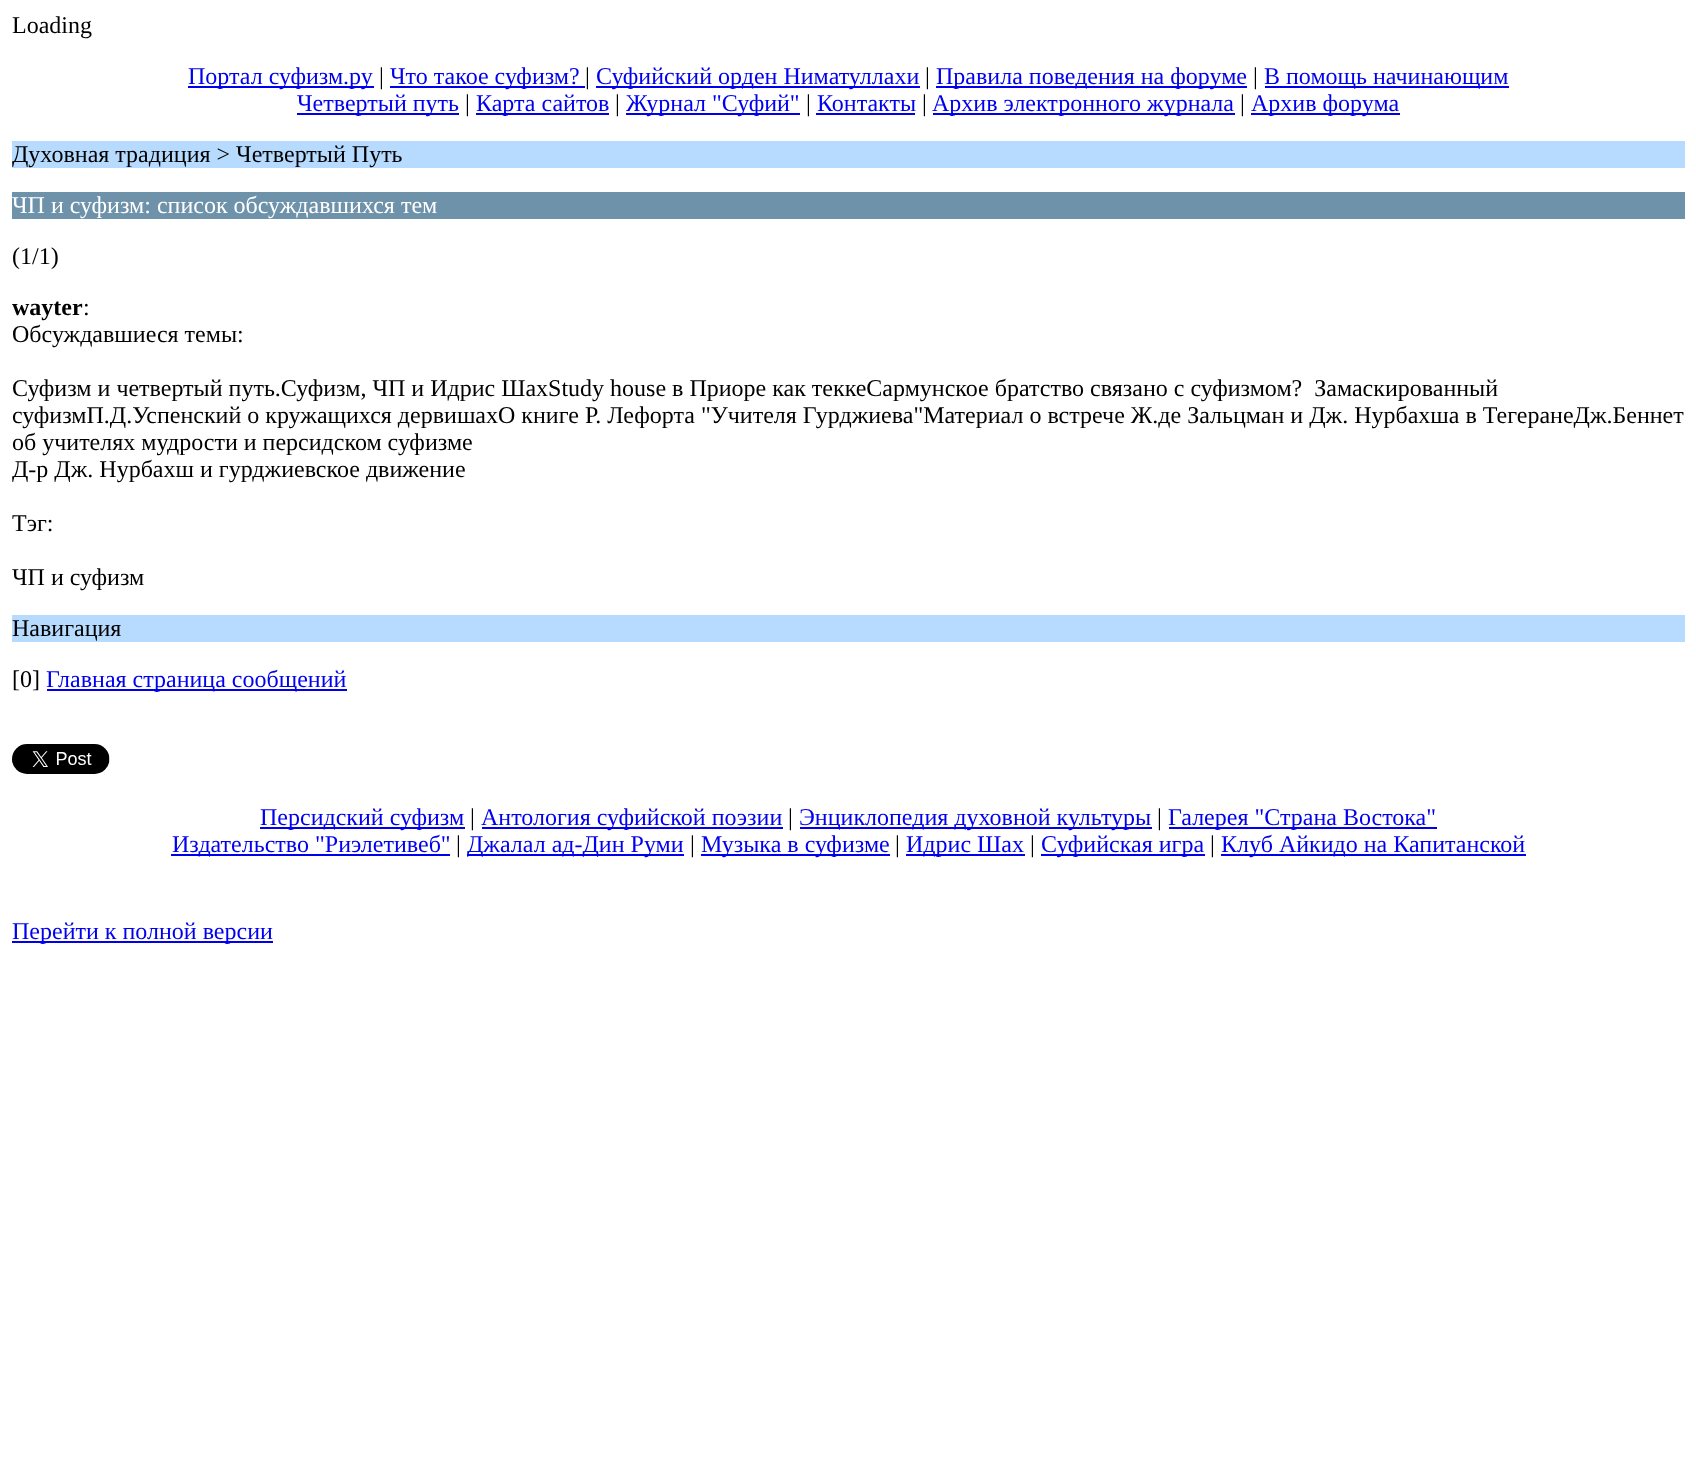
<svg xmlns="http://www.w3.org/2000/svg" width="1696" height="1463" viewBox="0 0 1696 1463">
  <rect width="100%" height="100%" fill="#ffffff"/>
  <text x="12" y="33" font-family="Liberation Serif" font-size="24" fill="#000000">Loading</text>
  <rect x="188" y="86" width="186" height="2" fill="#0000ee"/>
  <text x="188" y="84" font-family="Liberation Serif" font-size="24" fill="#0000ee">Портал суфизм.ру</text>
  <text x="379" y="84" font-family="Liberation Serif" font-size="24" fill="#000000">|</text>
  <rect x="390" y="86" width="195" height="2" fill="#0000ee"/>
  <text x="390" y="84" font-family="Liberation Serif" font-size="24" fill="#0000ee">Что такое суфизм?</text>
  <text x="585" y="84" font-family="Liberation Serif" font-size="24" fill="#000000">|</text>
  <rect x="596" y="86" width="324" height="2" fill="#0000ee"/>
  <text x="596" y="84" font-family="Liberation Serif" font-size="24" fill="#0000ee">Суфийский орден Ниматуллахи</text>
  <text x="925" y="84" font-family="Liberation Serif" font-size="24" fill="#000000">|</text>
  <rect x="936" y="86" width="311" height="2" fill="#0000ee"/>
  <text x="936" y="84" font-family="Liberation Serif" font-size="24" fill="#0000ee">Правила поведения на форуме</text>
  <text x="1253" y="84" font-family="Liberation Serif" font-size="24" fill="#000000">|</text>
  <rect x="1265" y="86" width="244" height="2" fill="#0000ee"/>
  <text x="1264" y="84" font-family="Liberation Serif" font-size="24" fill="#0000ee">В помощь начинающим</text>
  <rect x="297" y="113" width="162" height="2" fill="#0000ee"/>
  <text x="297" y="111" font-family="Liberation Serif" font-size="24" fill="#0000ee">Четвертый путь</text>
  <text x="465" y="111" font-family="Liberation Serif" font-size="24" fill="#000000">|</text>
  <rect x="476" y="113" width="133" height="2" fill="#0000ee"/>
  <text x="476" y="111" font-family="Liberation Serif" font-size="24" fill="#0000ee">Карта сайтов</text>
  <text x="615" y="111" font-family="Liberation Serif" font-size="24" fill="#000000">|</text>
  <rect x="626" y="113" width="174" height="2" fill="#0000ee"/>
  <text x="626" y="111" font-family="Liberation Serif" font-size="24" fill="#0000ee">Журнал "Суфий"</text>
  <text x="806" y="111" font-family="Liberation Serif" font-size="24" fill="#000000">|</text>
  <text x="817" y="111" font-family="Liberation Serif" font-size="24" fill="#0000ee">Контакты</text>
  <rect x="816" y="113" width="99" height="2" fill="#0000ee"/>
  <text x="922" y="111" font-family="Liberation Serif" font-size="24" fill="#000000">|</text>
  <rect x="933" y="113" width="302" height="2" fill="#0000ee"/>
  <text x="932" y="111" font-family="Liberation Serif" font-size="24" fill="#0000ee">Архив электронного журнала</text>
  <text x="1240" y="111" font-family="Liberation Serif" font-size="24" fill="#000000">|</text>
  <rect x="1251" y="113" width="149" height="2" fill="#0000ee"/>
  <text x="1251" y="111" font-family="Liberation Serif" font-size="24" fill="#0000ee">Архив форума</text>
  <rect x="12" y="141" width="1673" height="27" fill="#b6dbff"/>
  <text x="12" y="162" font-family="Liberation Serif" font-size="24" fill="#000000">Духовная традиция &gt; Четвертый Путь</text>
  <rect x="12" y="192" width="1673" height="27" fill="#6d92aa"/>
  <text x="12" y="213" font-family="Liberation Serif" font-size="24" fill="#ffffff">ЧП и суфизм: список обсуждавшихся тем</text>
  <text x="12" y="264" font-family="Liberation Serif" font-size="24" fill="#000000">(1/1)</text>
  <text x="12" y="315" font-family="Liberation Serif" font-size="24" font-weight="bold" fill="#000000">wayter</text>
  <text x="83" y="315" font-family="Liberation Serif" font-size="24" fill="#000000">:</text>
  <text x="12" y="342" font-family="Liberation Serif" font-size="24" fill="#000000">Обсуждавшиеся темы:</text>
  <text x="12" y="396" font-family="Liberation Serif" font-size="24" fill="#000000" xml:space="preserve">Суфизм и четвертый путь.Суфизм, ЧП и Идрис ШахStudy house в Приоре как теккеСармунское братство связано с суфизмом?  Замаскированный</text>
  <text x="12" y="423" font-family="Liberation Serif" font-size="24" fill="#000000">суфизмП.Д.Успенский о кружащихся дервишахО книге Р. Лефорта "Учителя Гурджиева"Материал о встрече Ж.де Зальцман и Дж. Нурбахша в ТегеранеДж.Беннет</text>
  <text x="12" y="450" font-family="Liberation Serif" font-size="24" fill="#000000">об учителях мудрости и персидском суфизме</text>
  <text x="12" y="477" font-family="Liberation Serif" font-size="24" fill="#000000">Д-р Дж. Нурбахш и гурджиевское движение</text>
  <text x="12" y="531" font-family="Liberation Serif" font-size="24" fill="#000000">Тэг:</text>
  <text x="12" y="585" font-family="Liberation Serif" font-size="24" fill="#000000">ЧП и суфизм</text>
  <rect x="12" y="615" width="1673" height="27" fill="#b6dbff"/>
  <text x="12" y="636" font-family="Liberation Serif" font-size="24" fill="#000000">Навигация</text>
  <text x="12" y="687" font-family="Liberation Serif" font-size="24" fill="#000000">[0]</text>
  <rect x="47" y="689" width="300" height="2" fill="#0000ee"/>
  <text x="46" y="687" font-family="Liberation Serif" font-size="24" fill="#0000ee">Главная страница сообщений</text>
  <image x="12" y="744" width="98" height="30" href="img1.png"/>
  <rect x="260" y="827" width="205" height="2" fill="#0000ee"/>
  <text x="260" y="825" font-family="Liberation Serif" font-size="24" fill="#0000ee">Персидский суфизм</text>
  <text x="470" y="825" font-family="Liberation Serif" font-size="24" fill="#000000">|</text>
  <rect x="482" y="827" width="301" height="2" fill="#0000ee"/>
  <text x="481" y="825" font-family="Liberation Serif" font-size="24" fill="#0000ee">Антология суфийской поэзии</text>
  <text x="788" y="825" font-family="Liberation Serif" font-size="24" fill="#000000">|</text>
  <rect x="800" y="827" width="352" height="2" fill="#0000ee"/>
  <text x="799" y="825" font-family="Liberation Serif" font-size="24" fill="#0000ee">Энциклопедия духовной культуры</text>
  <text x="1157" y="825" font-family="Liberation Serif" font-size="24" fill="#000000">|</text>
  <rect x="1169" y="827" width="268" height="2" fill="#0000ee"/>
  <text x="1168" y="825" font-family="Liberation Serif" font-size="24" fill="#0000ee">Галерея "Страна Востока"</text>
  <rect x="171" y="854" width="279" height="2" fill="#0000ee"/>
  <text x="172" y="852" font-family="Liberation Serif" font-size="24" fill="#0000ee">Издательство "Риэлетивеб"</text>
  <text x="456" y="852" font-family="Liberation Serif" font-size="24" fill="#000000">|</text>
  <rect x="467" y="854" width="217" height="2" fill="#0000ee"/>
  <text x="467" y="852" font-family="Liberation Serif" font-size="24" fill="#0000ee">Джалал ад-Дин Руми</text>
  <text x="690" y="852" font-family="Liberation Serif" font-size="24" fill="#000000">|</text>
  <rect x="701" y="854" width="189" height="2" fill="#0000ee"/>
  <text x="701" y="852" font-family="Liberation Serif" font-size="24" fill="#0000ee">Музыка в суфизме</text>
  <text x="895" y="852" font-family="Liberation Serif" font-size="24" fill="#000000">|</text>
  <rect x="906" y="854" width="119" height="2" fill="#0000ee"/>
  <text x="906" y="852" font-family="Liberation Serif" font-size="24" fill="#0000ee">Идрис Шах</text>
  <text x="1030" y="852" font-family="Liberation Serif" font-size="24" fill="#000000">|</text>
  <rect x="1041" y="854" width="164" height="2" fill="#0000ee"/>
  <text x="1041" y="852" font-family="Liberation Serif" font-size="24" fill="#0000ee">Суфийская игра</text>
  <text x="1210" y="852" font-family="Liberation Serif" font-size="24" fill="#000000">|</text>
  <rect x="1221" y="854" width="305" height="2" fill="#0000ee"/>
  <text x="1221" y="852" font-family="Liberation Serif" font-size="24" fill="#0000ee">Клуб Айкидо на Капитанской</text>
  <rect x="12" y="941" width="261" height="2" fill="#0000ee"/>
  <text x="12" y="939" font-family="Liberation Serif" font-size="24" fill="#0000ee">Перейти к полной версии</text>
</svg>
